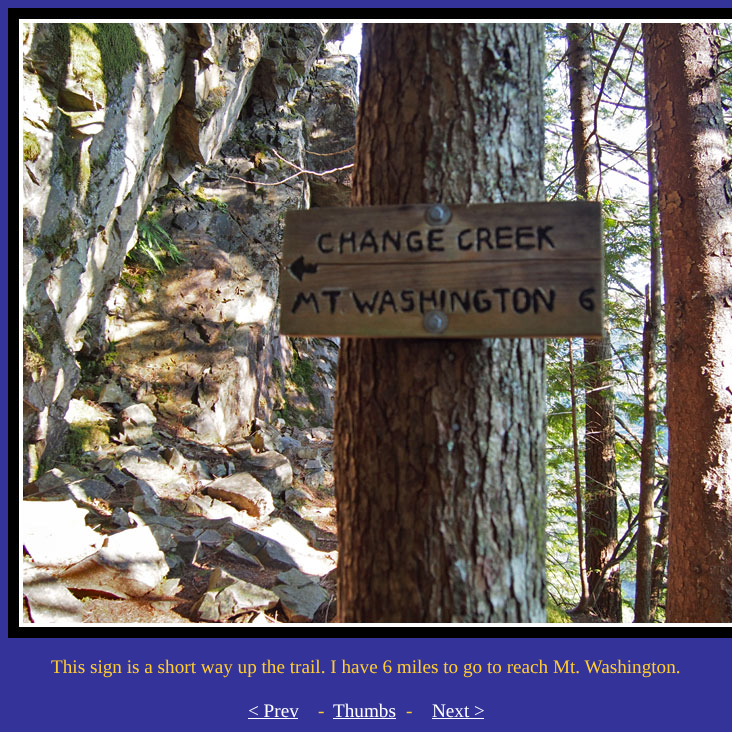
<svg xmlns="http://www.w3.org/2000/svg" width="732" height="732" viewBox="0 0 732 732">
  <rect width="100%" height="100%" fill="#333399"/>
  <image x="8" y="8" width="724" height="630" href="img1.png"/>
  <text x="51" y="673" font-family="Liberation Serif" font-size="19.2" fill="#ffcc33">This sign is a short way up the trail. I have 6 miles to go to reach Mt. Washington.</text>
  <text x="248" y="717" font-family="Liberation Serif" font-size="19.2" fill="#ffffff">&lt; Prev</text>
  <rect x="248" y="718" width="50" height="1" fill="#ffffff"/>
  <text x="318" y="717" font-family="Liberation Serif" font-size="19.2" fill="#ffcc33">-</text>
  <text x="333" y="717" font-family="Liberation Serif" font-size="19.2" fill="#ffffff">Thumbs</text>
  <rect x="333" y="718" width="63" height="1" fill="#ffffff"/>
  <text x="406" y="717" font-family="Liberation Serif" font-size="19.2" fill="#ffcc33">-</text>
  <text x="432" y="717" font-family="Liberation Serif" font-size="19.2" fill="#ffffff">Next &gt;</text>
  <rect x="432" y="718" width="52" height="1" fill="#ffffff"/>
</svg>
